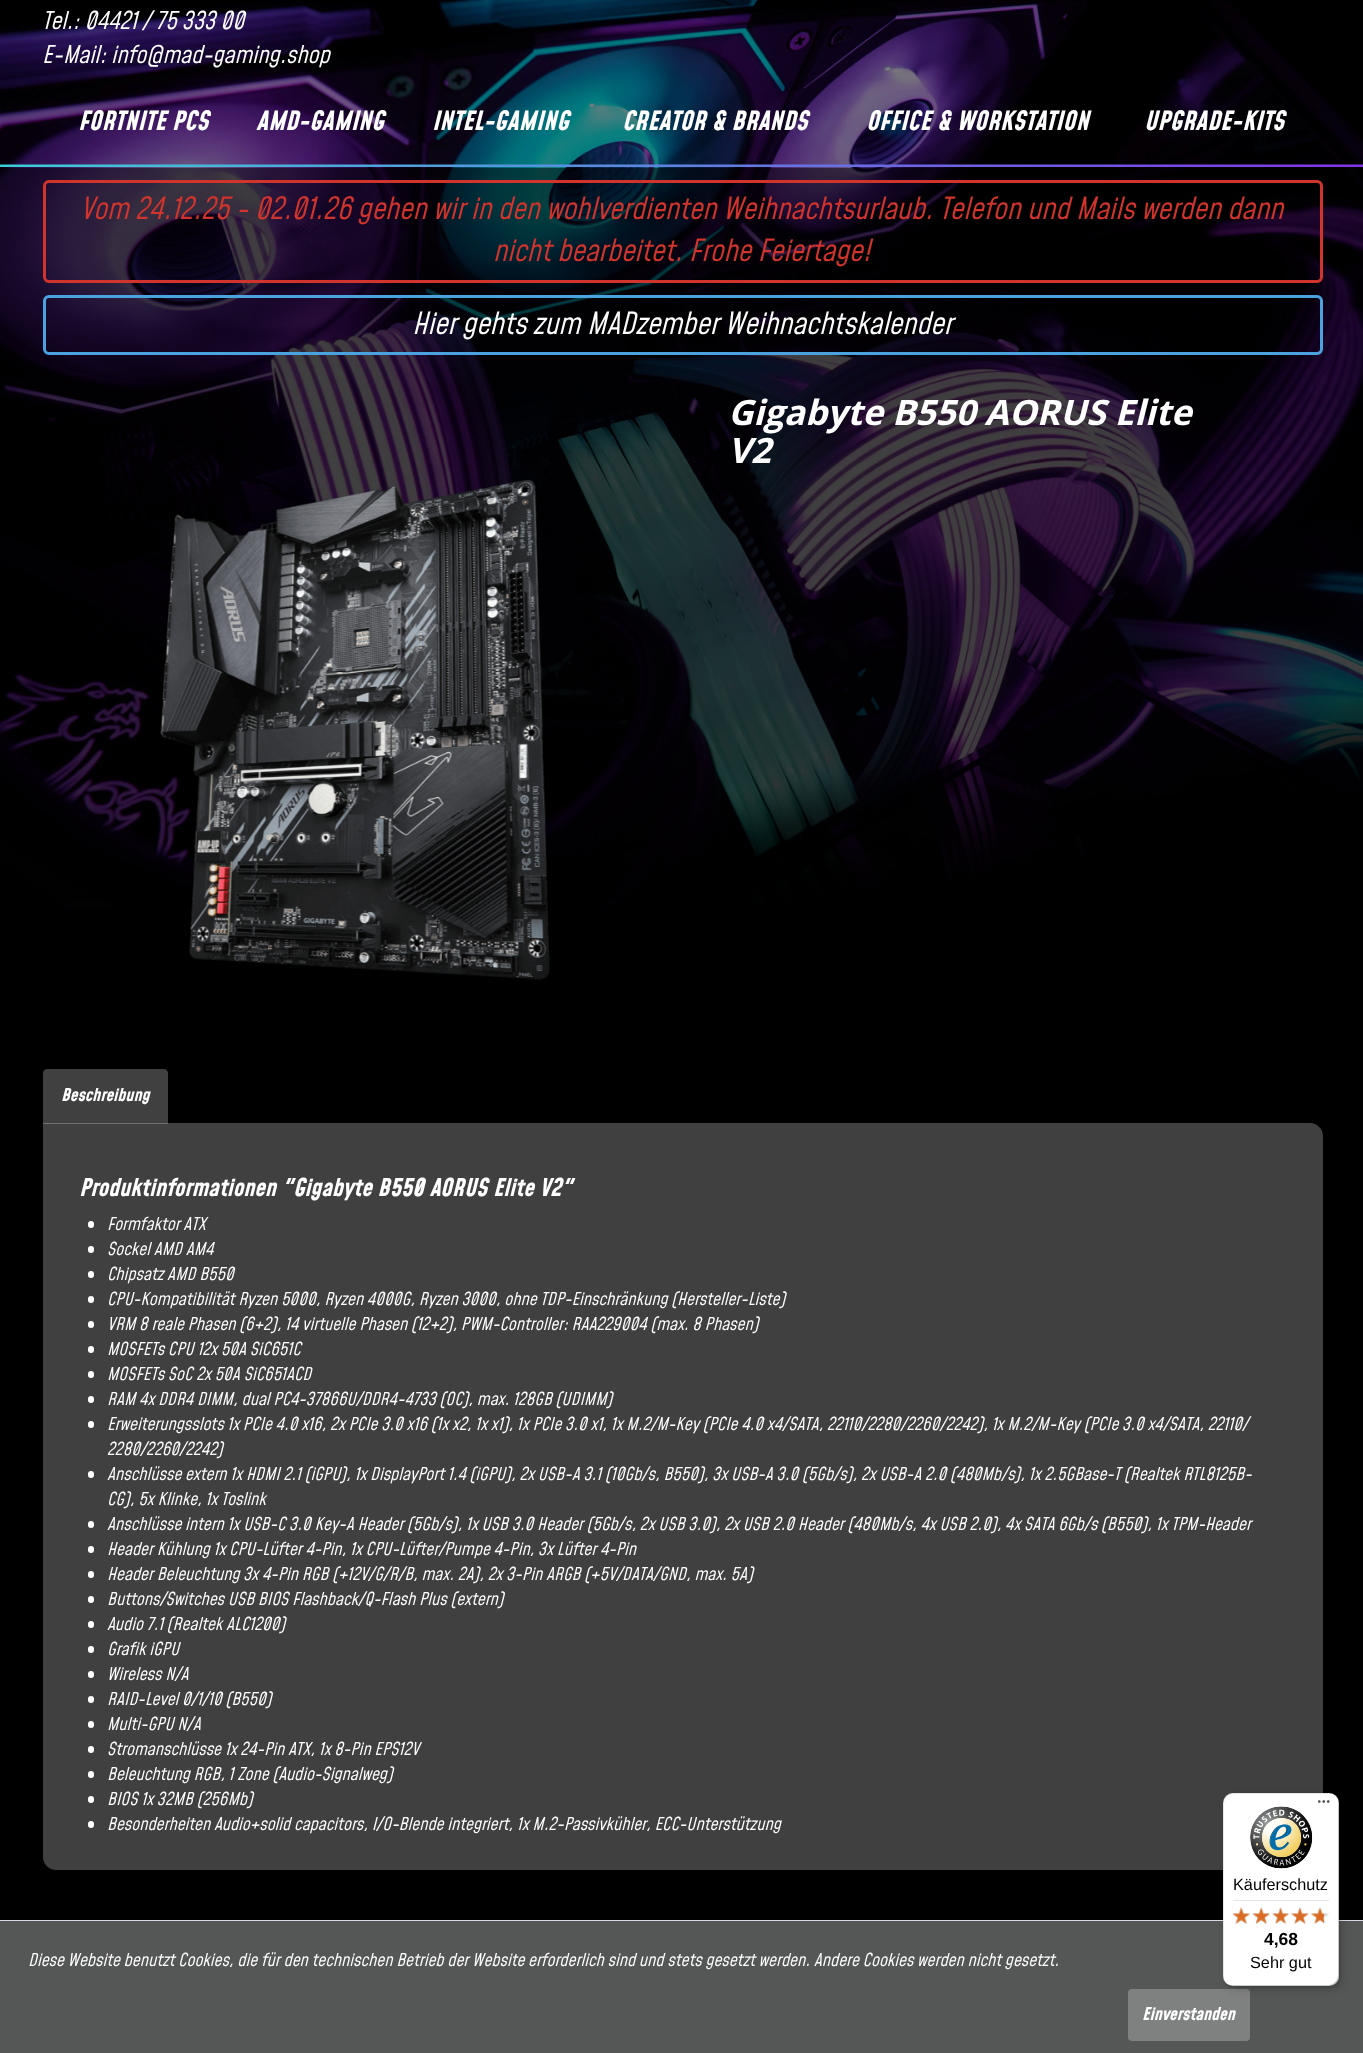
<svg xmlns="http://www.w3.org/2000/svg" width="1363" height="2053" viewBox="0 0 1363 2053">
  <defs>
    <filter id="blur1" x="-50%" y="-200%" width="200%" height="500%"><feGaussianBlur stdDeviation="5"/></filter>
    <filter id="blur2" x="-50%" y="-200%" width="200%" height="500%"><feGaussianBlur stdDeviation="1"/></filter>
  </defs>
  <rect width="100%" height="100%" fill="#000000"/>
  <image x="0" y="0" width="1363" height="909" href="img1.png"/>
  <text x="42" y="29" font-family="Mohave" font-size="24" font-style="italic" fill="#ffffff">Tel.: 04421 / 75 333 00</text>
  <text x="42" y="63" font-family="Mohave" font-size="24" font-style="italic" fill="#ffffff">E-Mail: info@mad-gaming.shop</text>
  <text x="78" y="130" font-family="Mohave" font-size="26" font-weight="bold" font-style="italic" fill="#ffffff">FORTNITE PCS</text>
  <text x="256" y="130" font-family="Mohave" font-size="26" font-weight="bold" font-style="italic" fill="#ffffff">AMD-GAMING</text>
  <text x="432" y="130" font-family="Mohave" font-size="26" font-weight="bold" font-style="italic" fill="#ffffff">INTEL-GAMING</text>
  <text x="622" y="130" font-family="Mohave" font-size="26" font-weight="bold" font-style="italic" fill="#ffffff">CREATOR &amp; BRANDS</text>
  <text x="866" y="130" font-family="Mohave" font-size="26" font-weight="bold" font-style="italic" fill="#ffffff">OFFICE &amp; WORKSTATION</text>
  <text x="1144" y="130" font-family="Mohave" font-size="26" font-weight="bold" font-style="italic" fill="#ffffff">UPGRADE-KITS</text>
  <image x="0" y="164" width="1363" height="3" href="img2.png"/>
  <rect x="0" y="168" width="1363" height="733" fill="#000000" fill-opacity="0.5"/>
  <rect x="44.5" y="181.5" width="1277" height="100" rx="4.5" fill="none" stroke="#d0342c" stroke-width="3"/>
  <text x="80" y="219" font-family="Mohave" font-size="30" font-style="italic" fill="#d0342c">Vom 24.12.25 - 02.01.26 gehen wir in den wohlverdienten Weihnachtsurlaub. Telefon und Mails werden dann</text>
  <text x="493" y="261" font-family="Mohave" font-size="30" font-style="italic" fill="#d0342c">nicht bearbeitet. Frohe Feiertage!</text>
  <rect x="44.5" y="296.5" width="1277" height="57" rx="4.5" fill="none" stroke="#4aa3df" stroke-width="3"/>
  <text x="412" y="334" font-family="Mohave" font-size="30" font-style="italic" fill="#ffffff">Hier gehts zum MADzember Weihnachtskalender</text>
  <text x="728" y="425" font-family="Open Sans" font-size="35" font-weight="bold" font-style="italic" fill="#ffffff">Gigabyte B550 AORUS Elite</text>
  <text x="728" y="463" font-family="Open Sans" font-size="35" font-weight="bold" font-style="italic" fill="#ffffff">V2</text>
  <image x="160" y="480" width="390" height="500" href="img3.png"/>
  <path d="M43 1123H1310C1317 1123 1323 1129 1323 1136V1857C1323 1864 1317 1870 1310 1870H56C49 1870 43 1864 43 1857Z" fill="#404040"/>
  <path d="M47 1069H164C166 1069 168 1071 168 1073V1124H43V1073C43 1071 45 1069 47 1069Z" fill="#ffffff" fill-opacity="0.25"/>
  <text x="61" y="1101" font-family="Mohave" font-size="17.5" font-weight="bold" font-style="italic" fill="#ffffff">Beschreibung</text>
  <text x="79" y="1196" font-family="Mohave" font-size="24" font-weight="bold" font-style="italic" fill="#ffffff">Produktinformationen "Gigabyte B550 AORUS Elite V2"</text>
  <rect x="88" y="1221" width="6" height="7" rx="3" fill="#ffffff"/>
  <text x="107" y="1230" font-family="Mohave" font-size="17.5" font-style="italic" fill="#ffffff">Formfaktor ATX</text>
  <rect x="88" y="1246" width="6" height="7" rx="3" fill="#ffffff"/>
  <text x="107" y="1255" font-family="Mohave" font-size="17.5" font-style="italic" fill="#ffffff">Sockel AMD AM4</text>
  <rect x="88" y="1271" width="6" height="7" rx="3" fill="#ffffff"/>
  <text x="107" y="1280" font-family="Mohave" font-size="17.5" font-style="italic" fill="#ffffff">Chipsatz AMD B550</text>
  <rect x="88" y="1296" width="6" height="7" rx="3" fill="#ffffff"/>
  <text x="107" y="1305" font-family="Mohave" font-size="17.5" font-style="italic" fill="#ffffff">CPU-Kompatibilität Ryzen 5000, Ryzen 4000G, Ryzen 3000, ohne TDP-Einschränkung (Hersteller-Liste)</text>
  <rect x="88" y="1321" width="6" height="7" rx="3" fill="#ffffff"/>
  <text x="107" y="1330" font-family="Mohave" font-size="17.5" font-style="italic" fill="#ffffff">VRM 8 reale Phasen (6+2), 14 virtuelle Phasen (12+2), PWM-Controller: RAA229004 (max. 8 Phasen)</text>
  <rect x="88" y="1346" width="6" height="7" rx="3" fill="#ffffff"/>
  <text x="107" y="1355" font-family="Mohave" font-size="17.5" font-style="italic" fill="#ffffff">MOSFETs CPU 12x 50A SiC651C</text>
  <rect x="88" y="1371" width="6" height="7" rx="3" fill="#ffffff"/>
  <text x="107" y="1380" font-family="Mohave" font-size="17.5" font-style="italic" fill="#ffffff">MOSFETs SoC 2x 50A SiC651ACD</text>
  <rect x="88" y="1396" width="6" height="7" rx="3" fill="#ffffff"/>
  <text x="107" y="1405" font-family="Mohave" font-size="17.5" font-style="italic" fill="#ffffff">RAM 4x DDR4 DIMM, dual PC4-37866U/DDR4-4733 (OC), max. 128GB (UDIMM)</text>
  <rect x="88" y="1421" width="6" height="7" rx="3" fill="#ffffff"/>
  <text x="107" y="1430" font-family="Mohave" font-size="17.5" font-style="italic" fill="#ffffff">Erweiterungsslots 1x PCIe 4.0 x16, 2x PCIe 3.0 x16 (1x x2, 1x x1), 1x PCIe 3.0 x1, 1x M.2/M-Key (PCIe 4.0 x4/SATA, 22110/2280/2260/2242), 1x M.2/M-Key (PCIe 3.0 x4/SATA, 22110/</text>
  <text x="107" y="1455" font-family="Mohave" font-size="17.5" font-style="italic" fill="#ffffff">2280/2260/2242)</text>
  <rect x="88" y="1471" width="6" height="7" rx="3" fill="#ffffff"/>
  <text x="107" y="1480" font-family="Mohave" font-size="17.5" font-style="italic" fill="#ffffff">Anschlüsse extern 1x HDMI 2.1 (iGPU), 1x DisplayPort 1.4 (iGPU), 2x USB-A 3.1 (10Gb/s, B550), 3x USB-A 3.0 (5Gb/s), 2x USB-A 2.0 (480Mb/s), 1x 2.5GBase-T (Realtek RTL8125B-</text>
  <text x="107" y="1505" font-family="Mohave" font-size="17.5" font-style="italic" fill="#ffffff">CG), 5x Klinke, 1x Toslink</text>
  <rect x="88" y="1521" width="6" height="7" rx="3" fill="#ffffff"/>
  <text x="107" y="1530" font-family="Mohave" font-size="17.5" font-style="italic" fill="#ffffff">Anschlüsse intern 1x USB-C 3.0 Key-A Header (5Gb/s), 1x USB 3.0 Header (5Gb/s, 2x USB 3.0), 2x USB 2.0 Header (480Mb/s, 4x USB 2.0), 4x SATA 6Gb/s (B550), 1x TPM-Header</text>
  <rect x="88" y="1546" width="6" height="7" rx="3" fill="#ffffff"/>
  <text x="107" y="1555" font-family="Mohave" font-size="17.5" font-style="italic" fill="#ffffff">Header Kühlung 1x CPU-Lüfter 4-Pin, 1x CPU-Lüfter/Pumpe 4-Pin, 3x Lüfter 4-Pin</text>
  <rect x="88" y="1571" width="6" height="7" rx="3" fill="#ffffff"/>
  <text x="107" y="1580" font-family="Mohave" font-size="17.5" font-style="italic" fill="#ffffff">Header Beleuchtung 3x 4-Pin RGB (+12V/G/R/B, max. 2A), 2x 3-Pin ARGB (+5V/DATA/GND, max. 5A)</text>
  <rect x="88" y="1596" width="6" height="7" rx="3" fill="#ffffff"/>
  <text x="107" y="1605" font-family="Mohave" font-size="17.5" font-style="italic" fill="#ffffff">Buttons/Switches USB BIOS Flashback/Q-Flash Plus (extern)</text>
  <rect x="88" y="1621" width="6" height="7" rx="3" fill="#ffffff"/>
  <text x="107" y="1630" font-family="Mohave" font-size="17.5" font-style="italic" fill="#ffffff">Audio 7.1 (Realtek ALC1200)</text>
  <rect x="88" y="1646" width="6" height="7" rx="3" fill="#ffffff"/>
  <text x="107" y="1655" font-family="Mohave" font-size="17.5" font-style="italic" fill="#ffffff">Grafik iGPU</text>
  <rect x="88" y="1671" width="6" height="7" rx="3" fill="#ffffff"/>
  <text x="107" y="1680" font-family="Mohave" font-size="17.5" font-style="italic" fill="#ffffff">Wireless N/A</text>
  <rect x="88" y="1696" width="6" height="7" rx="3" fill="#ffffff"/>
  <text x="107" y="1705" font-family="Mohave" font-size="17.5" font-style="italic" fill="#ffffff">RAID-Level 0/1/10 (B550)</text>
  <rect x="88" y="1721" width="6" height="7" rx="3" fill="#ffffff"/>
  <text x="107" y="1730" font-family="Mohave" font-size="17.5" font-style="italic" fill="#ffffff">Multi-GPU N/A</text>
  <rect x="88" y="1746" width="6" height="7" rx="3" fill="#ffffff"/>
  <text x="107" y="1755" font-family="Mohave" font-size="17.5" font-style="italic" fill="#ffffff">Stromanschlüsse 1x 24-Pin ATX, 1x 8-Pin EPS12V</text>
  <rect x="88" y="1771" width="6" height="7" rx="3" fill="#ffffff"/>
  <text x="107" y="1780" font-family="Mohave" font-size="17.5" font-style="italic" fill="#ffffff">Beleuchtung RGB, 1 Zone (Audio-Signalweg)</text>
  <rect x="88" y="1796" width="6" height="7" rx="3" fill="#ffffff"/>
  <text x="107" y="1805" font-family="Mohave" font-size="17.5" font-style="italic" fill="#ffffff">BIOS 1x 32MB (256Mb)</text>
  <rect x="88" y="1821" width="6" height="7" rx="3" fill="#ffffff"/>
  <text x="107" y="1830" font-family="Mohave" font-size="17.5" font-style="italic" fill="#ffffff">Besonderheiten Audio+solid capacitors, I/O-Blende integriert, 1x M.2-Passivkühler, ECC-Unterstützung</text>
  <rect x="0" y="1921" width="1363" height="132" fill="#545755"/>
  <rect x="0" y="1920" width="1363" height="1" fill="#dadae5"/>
  <rect x="1128" y="1989" width="122" height="52" rx="4" fill="#7f8180"/>
  <rect x="1226" y="1796" width="117" height="194" rx="10" fill="#000000" fill-opacity="0.15" filter="url(#blur1)"/>
  <rect x="1224" y="1794" width="116" height="194" rx="10" fill="#000000" fill-opacity="0.15" filter="url(#blur2)"/>
  <rect x="1223" y="1793" width="116" height="193" rx="10" fill="#ffffff"/>
  <path d="M1234 1794H1330C1332 1794 1334 1794 1335 1795C1334 1794 1331 1793 1329 1793H1233C1227 1793 1223 1797 1223 1803V1976C1223 1978 1224 1980 1225 1982L1224 1978V1804C1224 1798 1228 1794 1234 1794Z" fill="#000000" fill-opacity="0.1"/>
  <path d="M1227 1984C1229 1985 1231 1986 1233 1986H1329C1335 1986 1339 1982 1339 1976V1803C1339 1801 1338 1799 1337 1797C1338 1798 1338 1800 1338 1801V1975C1338 1981 1333 1985 1328 1985H1231Z" fill="#000000" fill-opacity="0.2"/>
  <path d="M1328 1986H1329C1335 1986 1339 1982 1339 1976V1803C1339 1801 1338 1798 1337 1797C1338 1798 1338 1800 1338 1802V1976C1338 1981 1334 1986 1328 1986Z" fill="#323232" fill-opacity="0.2"/>
  <path d="M1328 1986H1329C1335 1986 1339 1982 1339 1976V1803C1339 1801 1338 1798 1337 1797C1338 1798 1338 1800 1338 1802V1976C1338 1981 1334 1986 1328 1986Z" fill="#ffffff" fill-opacity="0.3"/>
  <image x="1318" y="1800" width="12" height="3" href="img4.png"/>
  <image x="1250" y="1806" width="63" height="63" href="img5.png"/>
  <text x="1233" y="1890" font-family="Liberation Sans" font-size="16.25" fill="#000000">Käuferschutz</text>
  <rect x="1233" y="1900" width="96" height="1" fill="#e5e5e5"/>
  <image x="1232" y="1907" width="18" height="17" href="img6.png"/>
  <image x="1253" y="1907" width="17" height="17" href="img7.png"/>
  <image x="1272" y="1907" width="17" height="17" href="img8.png"/>
  <image x="1291" y="1907" width="18" height="17" href="img9.png"/>
  <image x="1311" y="1907" width="18" height="17" href="img10.png"/>
  <image x="1232" y="1907" width="18" height="17" href="img11.png"/>
  <image x="1252" y="1907" width="18" height="17" href="img12.png"/>
  <image x="1272" y="1907" width="17" height="17" href="img13.png"/>
  <image x="1291" y="1907" width="18" height="17" href="img14.png"/>
  <image x="1311" y="1907" width="13" height="17" href="img15.png"/>
  <text x="1264" y="1945" font-family="Liberation Sans" font-size="17.5" font-weight="bold" fill="#000000">4,68</text>
  <text x="1250" y="1968" font-family="Liberation Sans" font-size="16.25" fill="#000000">Sehr gut</text>
  <text x="28" y="1966" font-family="Mohave" font-size="17.5" font-style="italic" fill="#ffffff">Diese Website benutzt Cookies, die für den technischen Betrieb der Website erforderlich sind und stets gesetzt werden. Andere Cookies werden nicht gesetzt.</text>
  <text x="1142" y="2020" font-family="Mohave" font-size="17.5" font-weight="bold" font-style="italic" fill="#ffffff">Einverstanden</text>
</svg>
